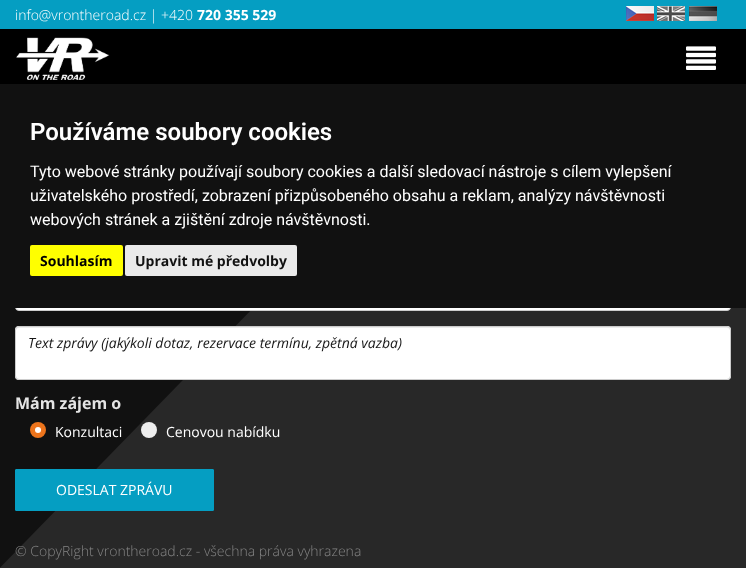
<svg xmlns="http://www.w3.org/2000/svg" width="746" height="568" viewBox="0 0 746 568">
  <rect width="100%" height="100%" fill="#ffffff"/>
  <rect x="0" y="0" width="746" height="29" fill="#059ec2"/>
  <text x="15" y="20" font-family="Open Sans" font-size="14" font-weight="300" fill="#ffffff">info@vrontheroad.cz | +420</text>
  <text x="197" y="20" font-family="Open Sans" font-size="14" font-weight="bold" fill="#ffffff">720 355 529</text>
  <image x="626" y="6" width="28" height="15" href="img1.png"/>
  <image x="657" y="6" width="28" height="15" href="img2.png"/>
  <image x="689" y="6" width="28" height="15" href="img3.png"/>
  <rect x="0" y="29" width="746" height="55" fill="#000000"/>
  <image x="16" y="37" width="94" height="43" href="img4.png"/>
  <image x="686" y="46" width="30" height="24" href="img5.png"/>
  <image x="0" y="308" width="746" height="260" href="img6.png"/>
  <rect x="15.5" y="277.5" width="715" height="33" rx="3.5" fill="#ffffff" stroke="#cccccc"/>
  <rect x="15" y="326" width="716" height="54" rx="4" fill="#ffffff"/>
  <path d="M19 328H727C729 328 730 329 730 331C730 329 729 327 727 327H19C17 327 16 329 16 331C16 329 17 328 19 328Z" fill="#ececec"/>
  <rect x="15.5" y="326.5" width="715" height="53" rx="3.5" fill="none" stroke="#cccccc"/>
  <text x="28" y="348" font-family="Open Sans" font-size="14" font-style="italic" fill="#171717">Text zprávy (jakýkoli dotaz, rezervace termínu, zpětná vazba)</text>
  <text x="15" y="409" font-family="Open Sans" font-size="16" font-weight="bold" fill="#e4e4e4">Mám zájem o</text>
  <circle cx="38" cy="430" r="8" fill="#ec741c"/>
  <circle cx="38" cy="430" r="3" fill="#ffffff"/>
  <text x="55" y="437" font-family="Open Sans" font-size="14" fill="#ffffff">Konzultaci</text>
  <circle cx="149" cy="430" r="8" fill="#eeeeee"/>
  <text x="166" y="437" font-family="Open Sans" font-size="14" fill="#ffffff">Cenovou nabídku</text>
  <rect x="15.5" y="469.5" width="198" height="41" rx="0.5" fill="#059ec2" stroke="#059ec2"/>
  <text x="56" y="495" font-family="Open Sans" font-size="14" fill="#ffffff">ODESLAT ZPRÁVU</text>
  <text x="15" y="556" font-family="Open Sans" font-size="14" font-weight="300" fill="#858585">© CopyRight vrontheroad.cz - všechna práva vyhrazena</text>
  <rect x="0" y="84" width="746" height="224" fill="#111111"/>
  <text x="30" y="140" font-family="Roboto" font-size="24" font-weight="600" fill="#ffffff">Používáme soubory cookies</text>
  <text x="30" y="177" font-family="Roboto" font-size="16" fill="#ffffff">Tyto webové stránky používají soubory cookies a další sledovací nástroje s cílem vylepšení</text>
  <text x="30" y="201" font-family="Roboto" font-size="16" fill="#ffffff">uživatelského prostředí, zobrazení přizpůsobeného obsahu a reklam, analýzy návštěvnosti</text>
  <text x="30" y="225" font-family="Roboto" font-size="16" fill="#ffffff">webových stránek a zjištění zdroje návštěvnosti.</text>
  <rect x="30" y="245" width="93" height="31" rx="2" fill="#ffff00"/>
  <text x="40" y="266" font-family="Open Sans" font-size="14" font-weight="bold" fill="#000000">Souhlasím</text>
  <rect x="125" y="245" width="172" height="31" rx="2" fill="#eaeaea"/>
  <text x="135" y="266" font-family="Open Sans" font-size="14" font-weight="bold" fill="#111111">Upravit mé předvolby</text>
</svg>
